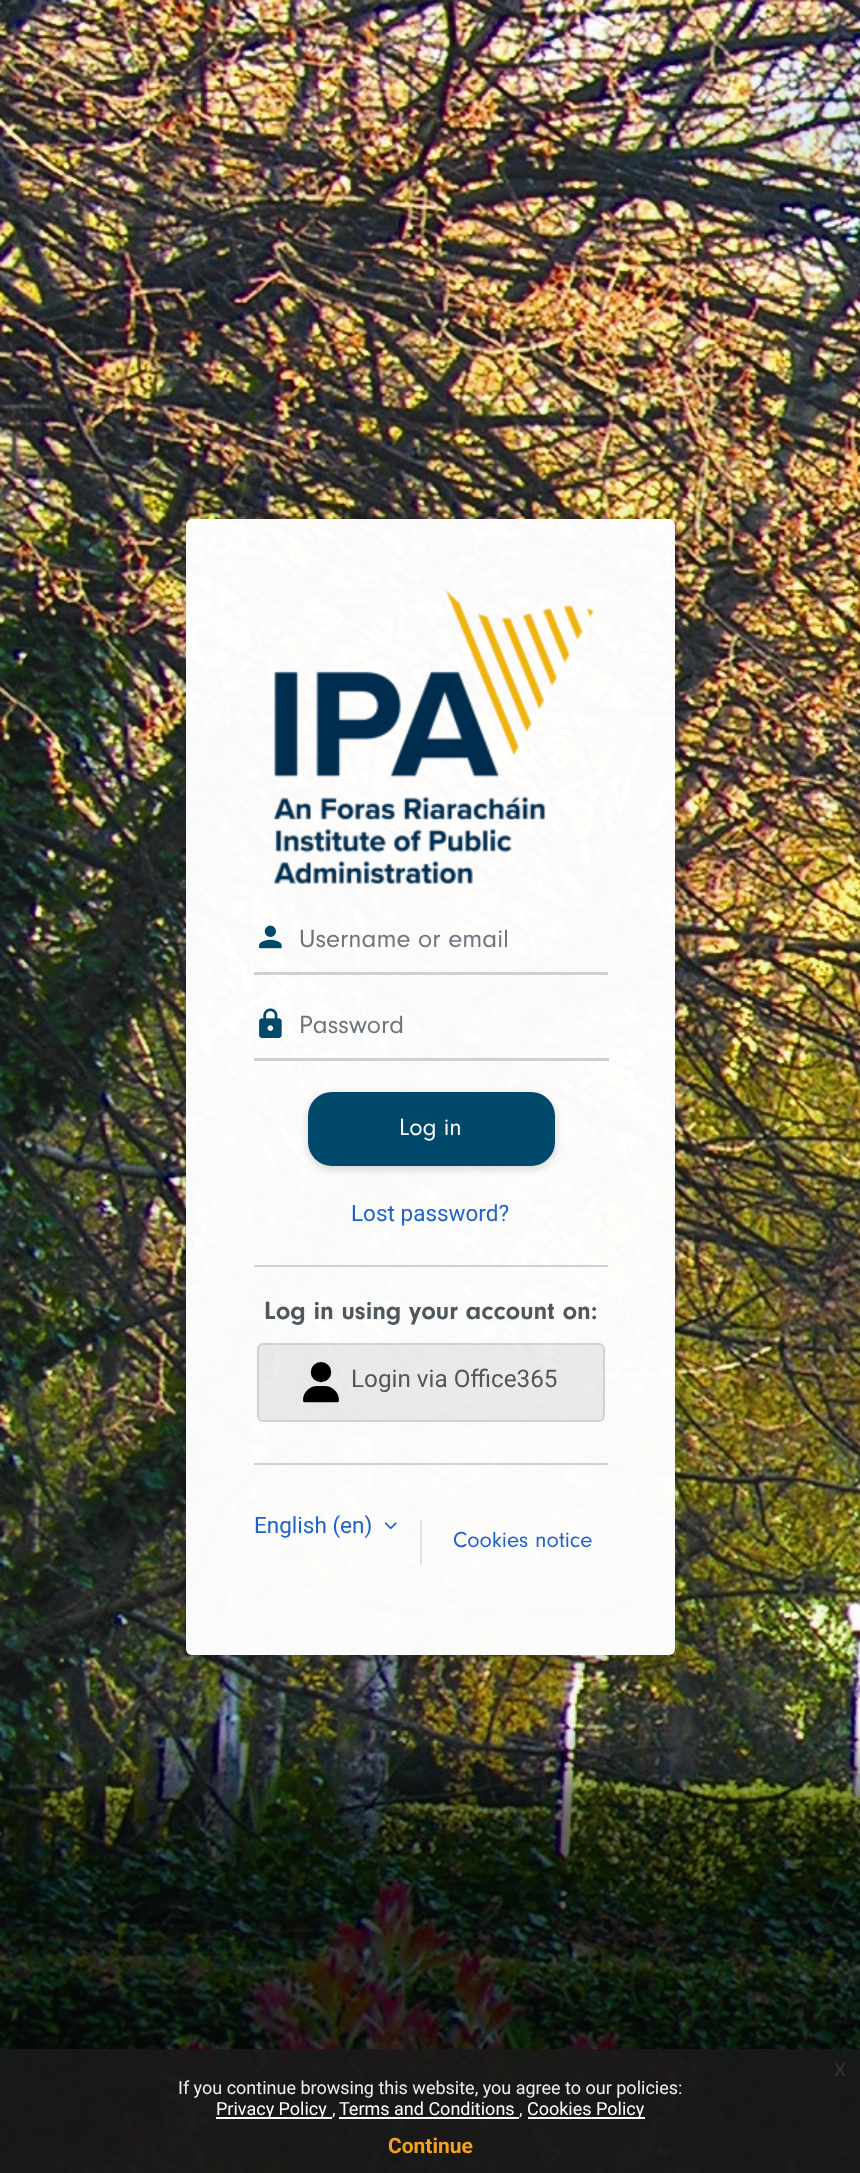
<svg xmlns="http://www.w3.org/2000/svg" width="860" height="2173" viewBox="0 0 860 2173">
  <defs>
    <clipPath id="clip1"><path d="M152 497H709V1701H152ZM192 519H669C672.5 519 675 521.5 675 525V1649C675 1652.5 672.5 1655 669 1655H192C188.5 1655 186 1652.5 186 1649V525C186 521.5 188.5 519 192 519Z" clip-rule="evenodd"/></clipPath>
    <filter id="blur1" x="-50%" y="-200%" width="200%" height="500%"><feGaussianBlur stdDeviation="11"/></filter>
    <filter id="blur2" x="-50%" y="-200%" width="200%" height="500%"><feGaussianBlur stdDeviation="4"/></filter>
  </defs>
  <rect width="100%" height="100%" fill="#ffffff"/>
  <image x="0" y="0" width="860" height="2173" href="img1.png"/>
  <g clip-path="url(#clip1)">
    <rect x="186" y="531" width="489" height="1136" rx="6" fill="#000000" fill-opacity="0.15" filter="url(#blur1)"/>
  </g>
  <rect x="186" y="519" width="489" height="1136" rx="6" fill="#ffffff" fill-opacity="0.98"/>
  <image x="273" y="589" width="322" height="296" href="img2.png"/>
  <image x="259" y="925" width="23" height="24" href="img3.png"/>
  <rect x="254" y="972" width="354" height="3" fill="#78828c" fill-opacity="0.35"/>
  <text x="299" y="947" font-family="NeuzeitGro" font-size="25.9" fill="#6c757d">Username or email</text>
  <image x="259" y="1008" width="23" height="30" href="img4.png"/>
  <rect x="254" y="1058" width="355" height="3" fill="#78828c" fill-opacity="0.35"/>
  <text x="299" y="1033" font-family="NeuzeitGro" font-size="25.9" fill="#6c757d">Password</text>
  <rect x="308" y="1095" width="247" height="74" rx="24" fill="#000000" fill-opacity="0.16" filter="url(#blur2)"/>
  <rect x="308" y="1092" width="247" height="74" rx="24" fill="#00496a"/>
  <text x="399" y="1135" font-family="NeuzeitGro" font-size="24.25" fill="#ffffff">Log in</text>
  <text x="351" y="1221" font-family="Roboto" font-size="22.5" fill="#1d61cb">Lost password?</text>
  <rect x="254" y="1265" width="354" height="2" fill="#78828c" fill-opacity="0.35"/>
  <text x="264" y="1319" font-family="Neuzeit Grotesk" font-size="25.9" font-weight="bold" fill="#4e585d">Log in using your account on:</text>
  <rect x="257" y="1343" width="348" height="79" rx="6" fill="#000000" fill-opacity="0.07"/>
  <rect x="258" y="1344" width="346" height="77" rx="5" fill="none" stroke="#000000" stroke-opacity="0.1" stroke-width="2"/>
  <image x="303" y="1362" width="36" height="41" href="img5.png"/>
  <text x="351" y="1387" font-family="Roboto" font-size="24.25" fill="#555555">Login via Office365</text>
  <rect x="254" y="1463" width="354" height="2" fill="#78828c" fill-opacity="0.35"/>
  <text x="254" y="1533" font-family="Roboto" font-size="22.5" fill="#1d61cb">English (en)</text>
  <image x="384" y="1522" width="13" height="8" href="img6.png"/>
  <rect x="420" y="1520" width="2" height="45" fill="#dee2e6"/>
  <text x="453" y="1547" font-family="NeuzeitGro" font-size="22.5" fill="#1d61cb">Cookies notice</text>
  <rect x="0" y="2049" width="860" height="124" fill="#191919" fill-opacity="0.9"/>
  <text x="834" y="2076" font-family="Liberation Sans" font-size="24" fill="#333433">x</text>
  <text x="178" y="2094" font-family="Roboto" font-size="18" fill="#efefef">If you continue browsing this website, you agree to our policies:</text>
  <rect x="216" y="2117" width="116" height="2" fill="#ffffff"/>
  <text x="216" y="2115" font-family="Roboto" font-size="18" fill="#ffffff">Privacy Policy</text>
  <text x="332" y="2115" font-family="Roboto" font-size="18" fill="#efefef">,</text>
  <rect x="339" y="2117" width="180" height="2" fill="#ffffff"/>
  <text x="339" y="2115" font-family="Roboto" font-size="18" fill="#ffffff">Terms and Conditions</text>
  <text x="519" y="2115" font-family="Roboto" font-size="18" fill="#efefef">,</text>
  <rect x="528" y="2117" width="117" height="2" fill="#ffffff"/>
  <text x="527" y="2115" font-family="Roboto" font-size="18" fill="#ffffff">Cookies Policy</text>
  <text x="388" y="2153" font-family="Roboto" font-size="21" font-weight="bold" fill="#f6a21d">Continue</text>
</svg>
